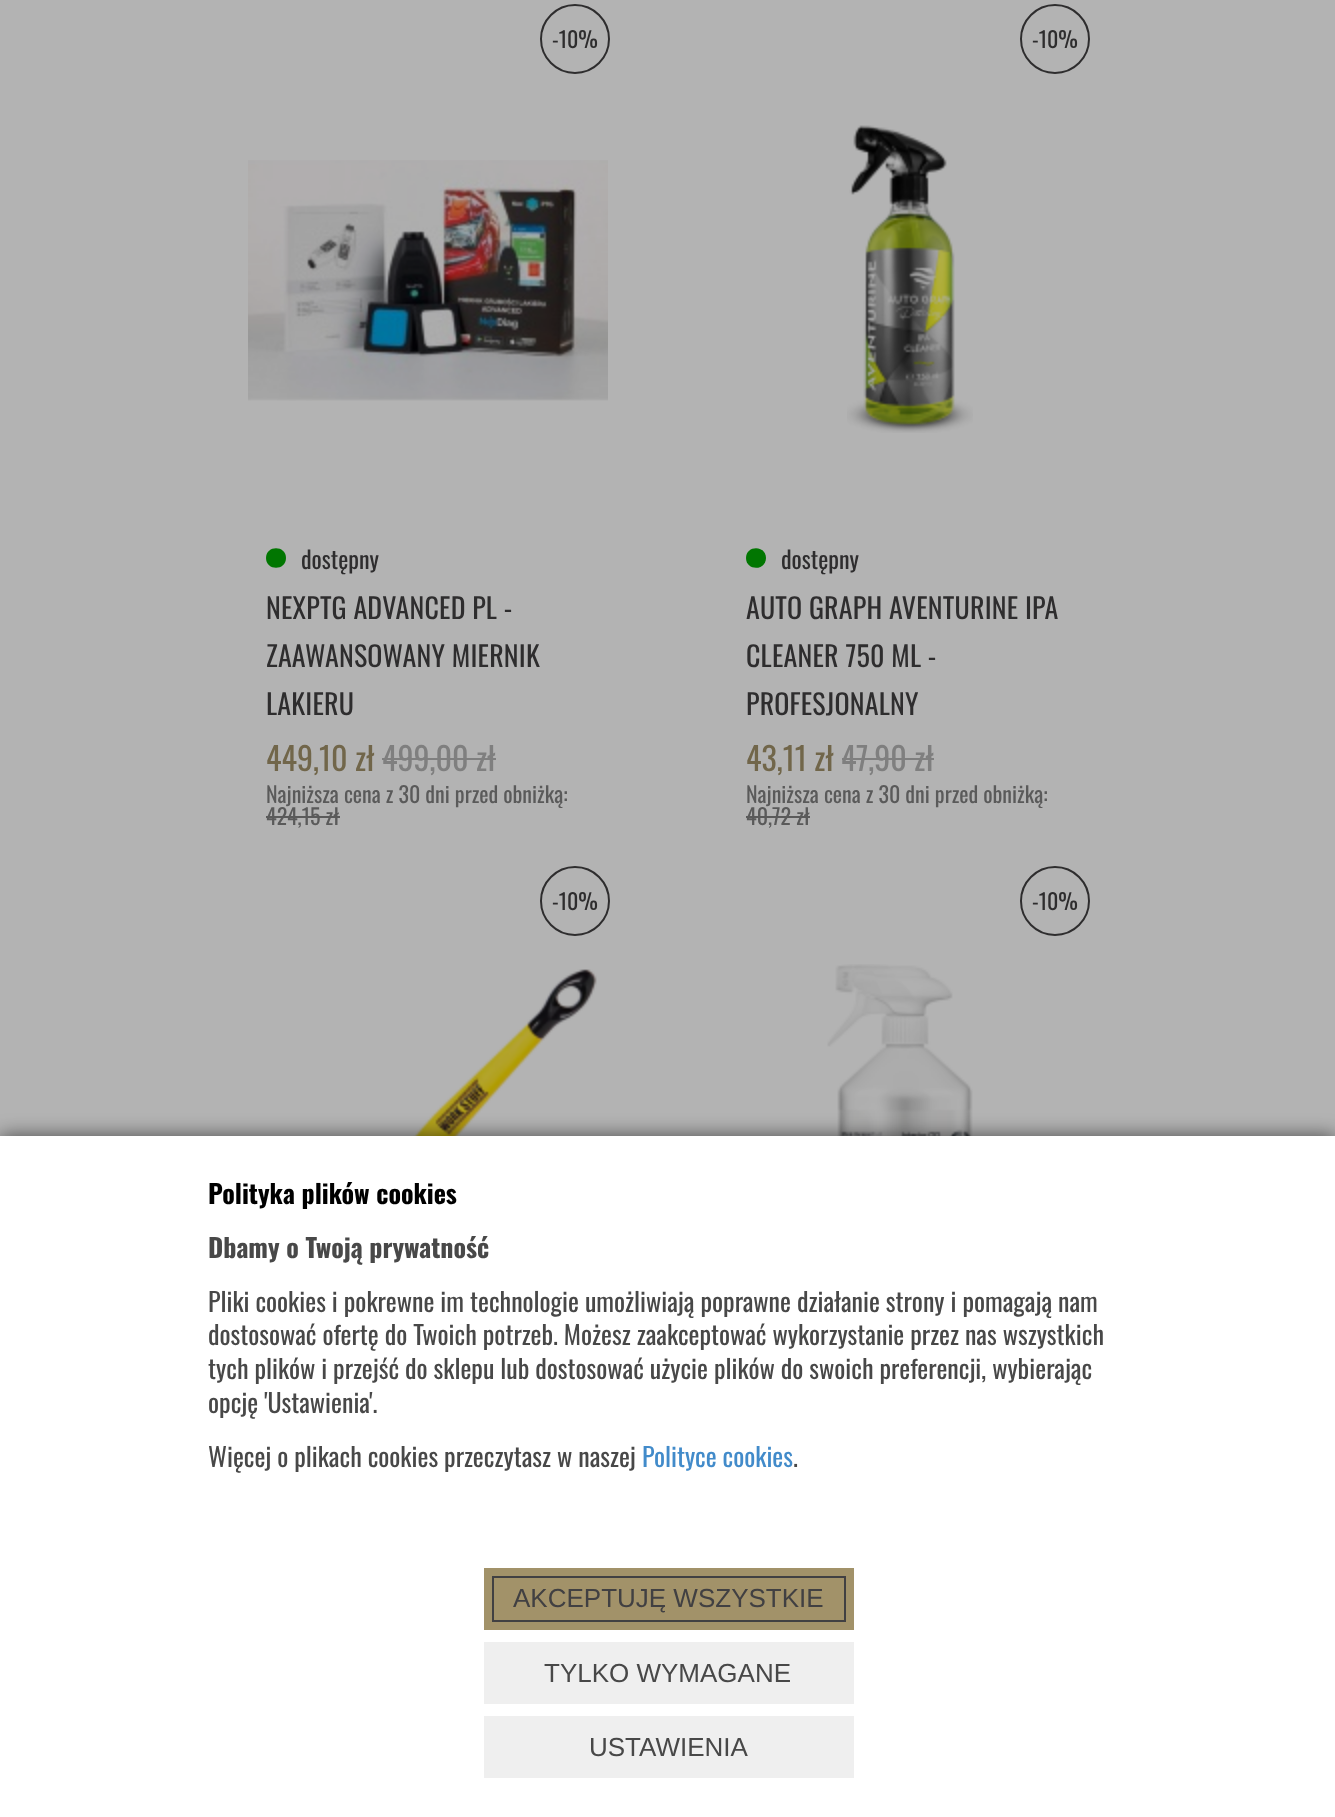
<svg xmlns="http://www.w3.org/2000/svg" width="1335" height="1817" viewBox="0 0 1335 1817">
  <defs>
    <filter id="blur1" x="-50%" y="-200%" width="200%" height="500%"><feGaussianBlur stdDeviation="10"/></filter>
  </defs>
  <rect width="100%" height="100%" fill="#b3b3b3"/>
  <circle cx="575" cy="39" r="34" fill="none" stroke="#2e2d2e" stroke-width="2"/>
  <text x="552" y="48" font-family="Oswald" font-size="22" fill="#2e2d2e">-10%</text>
  <image x="248" y="160" width="360" height="241" href="img1.png"/>
  <path d="M286 558C286 571 266 571 266 558C266 545 286 545 286 558Z" fill="#017601"/>
  <text x="301" y="569" font-family="Oswald" font-size="24" fill="#2e2d2e">dostępny</text>
  <text x="266" y="619" font-family="Oswald" font-size="28" letter-spacing="0.2" fill="#2e2d2e">NEXPTG ADVANCED PL -</text>
  <text x="266" y="667" font-family="Oswald" font-size="28" letter-spacing="0.2" fill="#2e2d2e">ZAAWANSOWANY MIERNIK</text>
  <text x="266" y="715" font-family="Oswald" font-size="28" letter-spacing="0.2" fill="#2e2d2e">LAKIERU</text>
  <text x="266" y="771" font-family="Oswald" font-size="32" fill="#71664a">449,10 zł</text>
  <text x="382" y="771" font-family="Oswald" font-size="32" fill="#7f7f7f">499,00 zł</text>
  <rect x="382" y="758" width="114" height="2" fill="#7f7f7f"/>
  <text x="266" y="803" font-family="Oswald" font-size="22" fill="#5a5a5a">Najniższa cena z 30 dni przed obniżką:</text>
  <text x="266" y="825" font-family="Oswald" font-size="22" fill="#5a5a5a">424,15 zł</text>
  <rect x="266" y="816" width="74" height="2" fill="#5a5a5a"/>
  <circle cx="1055" cy="39" r="34" fill="none" stroke="#2e2d2e" stroke-width="2"/>
  <text x="1032" y="48" font-family="Oswald" font-size="22" fill="#2e2d2e">-10%</text>
  <image x="847" y="125" width="126" height="308" href="img2.png"/>
  <path d="M766 558C766 571 746 571 746 558C746 545 766 545 766 558Z" fill="#017601"/>
  <text x="781" y="569" font-family="Oswald" font-size="24" fill="#2e2d2e">dostępny</text>
  <text x="746" y="619" font-family="Oswald" font-size="28" letter-spacing="0.2" fill="#2e2d2e">AUTO GRAPH AVENTURINE IPA</text>
  <text x="746" y="667" font-family="Oswald" font-size="28" letter-spacing="0.2" fill="#2e2d2e">CLEANER 750 ML -</text>
  <text x="746" y="715" font-family="Oswald" font-size="28" letter-spacing="0.2" fill="#2e2d2e">PROFESJONALNY</text>
  <text x="746" y="771" font-family="Oswald" font-size="32" fill="#71664a">43,11 zł</text>
  <text x="841" y="771" font-family="Oswald" font-size="32" fill="#7f7f7f">47,90 zł</text>
  <rect x="842" y="758" width="92" height="2" fill="#7f7f7f"/>
  <text x="746" y="803" font-family="Oswald" font-size="22" fill="#5a5a5a">Najniższa cena z 30 dni przed obniżką:</text>
  <text x="746" y="825" font-family="Oswald" font-size="22" fill="#5a5a5a">40,72 zł</text>
  <rect x="746" y="816" width="64" height="2" fill="#5a5a5a"/>
  <circle cx="575" cy="901" r="34" fill="none" stroke="#2e2d2e" stroke-width="2"/>
  <text x="552" y="910" font-family="Oswald" font-size="22" fill="#2e2d2e">-10%</text>
  <image x="257" y="969" width="340" height="167" href="img3.png"/>
  <circle cx="1055" cy="901" r="34" fill="none" stroke="#2e2d2e" stroke-width="2"/>
  <text x="1032" y="910" font-family="Oswald" font-size="22" fill="#2e2d2e">-10%</text>
  <image x="827" y="964" width="146" height="172" href="img4.png"/>
  <rect x="0" y="1136" width="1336" height="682" fill="#000000" fill-opacity="0.6" filter="url(#blur1)"/>
  <rect x="0" y="1136" width="1335" height="681" fill="#ffffff"/>
  <text x="208" y="1204" font-family="Oswald" font-size="26" font-weight="bold" fill="#000000">Polityka plików cookies</text>
  <text x="208" y="1258" font-family="Oswald" font-size="26" font-weight="bold" fill="#484848">Dbamy o Twoją prywatność</text>
  <text x="208" y="1312" font-family="Oswald" font-size="26" fill="#484848">Pliki cookies i pokrewne im technologie umożliwiają poprawne działanie strony i pomagają nam</text>
  <text x="208" y="1345" font-family="Oswald" font-size="26" fill="#484848">dostosować ofertę do Twoich potrzeb. Możesz zaakceptować wykorzystanie przez nas wszystkich</text>
  <text x="208" y="1379" font-family="Oswald" font-size="26" fill="#484848">tych plików i przejść do sklepu lub dostosować użycie plików do swoich preferencji, wybierając</text>
  <text x="208" y="1413" font-family="Oswald" font-size="26" fill="#484848">opcję 'Ustawienia'.</text>
  <text x="208" y="1467" font-family="Oswald" font-size="26" fill="#484848">Więcej o plikach cookies przeczytasz w naszej</text>
  <text x="642" y="1467" font-family="Oswald" font-size="26" fill="#428bca">Polityce cookies</text>
  <text x="793" y="1467" font-family="Oswald" font-size="26" fill="#484848">.</text>
  <rect x="484" y="1568" width="370" height="62" fill="#a29269"/>
  <rect x="493" y="1577" width="352" height="44" fill="none" stroke="#414042" stroke-width="2"/>
  <text x="513" y="1607" font-family="Liberation Sans" font-size="26" fill="#414042">AKCEPTUJĘ WSZYSTKIE</text>
  <rect x="484" y="1642" width="370" height="62" fill="#efefef"/>
  <text x="544" y="1682" font-family="Liberation Sans" font-size="26" fill="#484848">TYLKO WYMAGANE</text>
  <rect x="484" y="1716" width="370" height="62" fill="#efefef"/>
  <text x="589" y="1756" font-family="Liberation Sans" font-size="26" fill="#484848">USTAWIENIA</text>
</svg>
